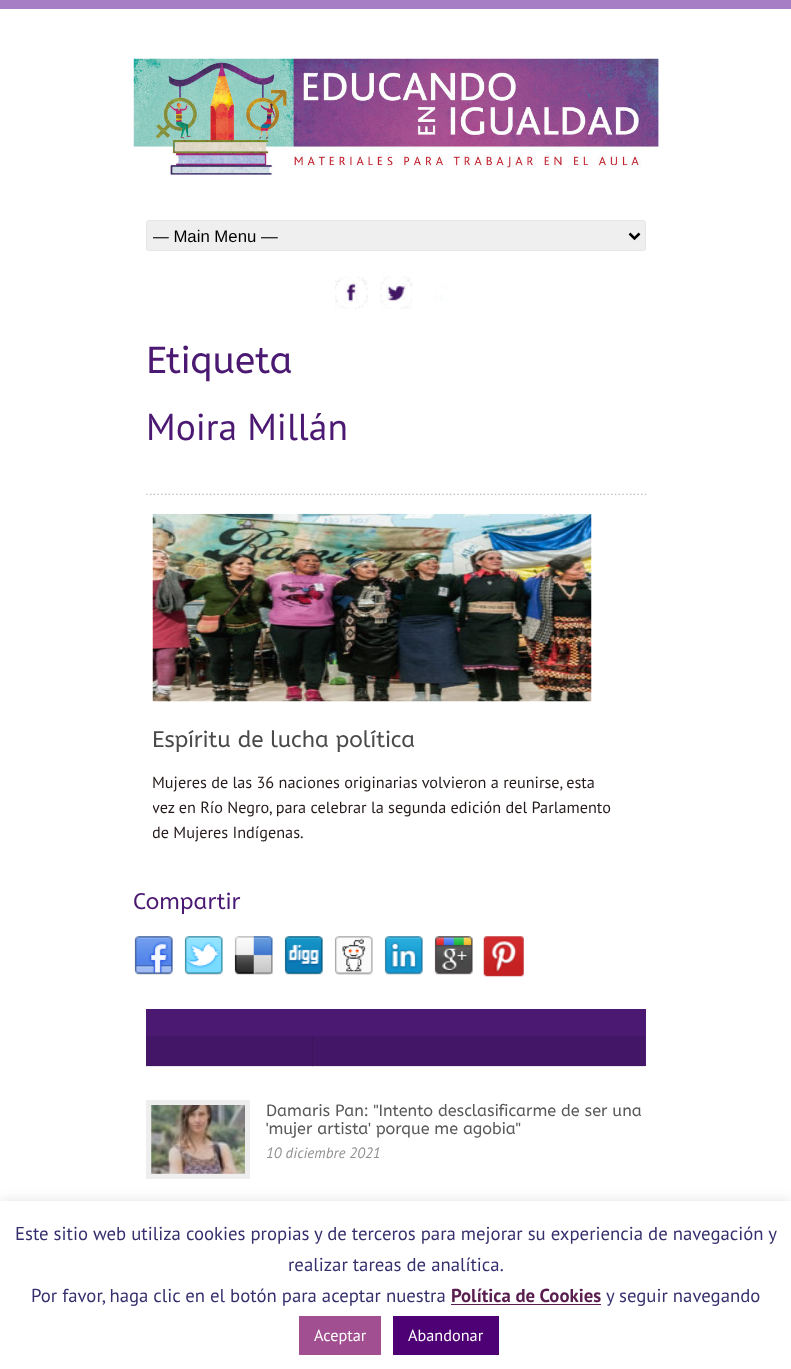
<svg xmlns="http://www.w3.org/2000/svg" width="791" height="1369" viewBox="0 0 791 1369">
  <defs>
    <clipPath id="clip1"><rect x="153" y="225" width="472" height="21"/></clipPath>
    <clipPath id="clip2"><rect x="153" y="514" width="487" height="331"/></clipPath>
    <filter id="blur1" x="-50%" y="-200%" width="200%" height="500%"><feGaussianBlur stdDeviation="6"/></filter>
  </defs>
  <rect width="100%" height="100%" fill="#ffffff"/>
  <rect x="313" y="1066" width="332" height="1" fill="#e6e6e6"/>
  <rect x="146" y="1066" width="166" height="1" fill="#e6e6e6"/>
  <rect x="312" y="1066" width="1" height="1" fill="#cfcfcf"/>
  <rect x="0" y="0" width="791" height="9" fill="#a67ec6"/>
  <image x="133" y="58" width="526" height="117" href="img1.png"/>
  <rect x="146.5" y="220.5" width="499" height="30" rx="2" fill="#efefef" stroke="#e6e6e6"/>
  <path d="M629.5 233.5L634.5 238.5L639.5 233.5" fill="none" stroke="#000000" stroke-width="2.5"/>
  <g clip-path="url(#clip1)">
    <text x="152" y="242" font-family="Liberation Sans" font-size="16.75" fill="#000000">— Main Menu —</text>
  </g>
  <image x="335" y="276" width="33" height="33" href="img2.png"/>
  <image x="380" y="276" width="33" height="33" href="img3.png"/>
  <image x="434" y="284" width="14" height="20" href="img4.png"/>
  <image x="146" y="493" width="501" height="2" href="img5.png"/>
  <text x="146" y="373" font-family="ABeeZee" font-size="37.5" fill="#4b1872">Etiqueta</text>
  <text x="146" y="440" font-family="PT Sans" font-size="37.5" fill="#4b1872">Moira Millán</text>
  <image x="152" y="513" width="440" height="189" href="img6.png"/>
  <text x="152" y="747" font-family="ABeeZee" font-size="22.5" fill="#4a4a4a">Espíritu de lucha política</text>
  <text x="152" y="788" font-family="PT Sans" font-size="16.25" fill="#261b1b">Mujeres de las 36 naciones originarias volvieron a reunirse, esta</text>
  <g clip-path="url(#clip2)">
    <text x="152" y="813" font-family="PT Sans" font-size="16.25" fill="#261b1b">vez en Río Negro, para celebrar la segunda edición del Parlamento</text>
    <text x="152" y="838" font-family="PT Sans" font-size="16.25" fill="#261b1b">de Mujeres Indígenas.</text>
  </g>
  <text x="133" y="909" font-family="ABeeZee" font-size="22.5" fill="#4b1872">Compartir</text>
  <image x="134" y="936" width="39" height="39" href="img7.png"/>
  <image x="184" y="936" width="39" height="39" href="img8.png"/>
  <image x="234" y="936" width="39" height="39" href="img9.png"/>
  <image x="284" y="936" width="39" height="39" href="img10.png"/>
  <image x="334" y="936" width="39" height="39" href="img11.png"/>
  <image x="384" y="936" width="39" height="39" href="img12.png"/>
  <image x="434" y="936" width="39" height="39" href="img13.png"/>
  <image x="483" y="936" width="41" height="41" href="img14.png"/>
  <rect x="146" y="1009" width="500" height="57" fill="#4b1872"/>
  <rect x="313" y="1036" width="332" height="30" fill="#441667"/>
  <rect x="146" y="1036" width="166" height="30" fill="#441667"/>
  <rect x="312" y="1036" width="1" height="30" fill="#3d145d"/>
  <rect x="146" y="1100" width="104" height="79" fill="#eeeeee"/>
  <image x="151" y="1105" width="94" height="69" href="img15.png"/>
  <text x="266" y="1116" font-family="ABeeZee" font-size="16.25" fill="#595959">Damaris Pan: "Intento desclasificarme de ser una</text>
  <text x="266" y="1134" font-family="ABeeZee" font-size="16.25" fill="#595959">'mujer artista' porque me agobia"</text>
  <text x="266" y="1158" font-family="PT Sans" font-size="15" font-style="italic" fill="#909090">10 diciembre 2021</text>
  <rect x="0" y="1200" width="791" height="169" fill="#acabab" fill-opacity="0.3" filter="url(#blur1)"/>
  <rect x="0" y="1201" width="791" height="168" fill="#ffffff"/>
  <text x="15" y="1240" font-family="PT Sans" font-size="18.75" fill="#35306d">Este sitio web utiliza cookies propias y de terceros para mejorar su experiencia de navegación y</text>
  <text x="288" y="1271" font-family="PT Sans" font-size="18.75" fill="#35306d">realizar tareas de analítica.</text>
  <text x="31" y="1302" font-family="PT Sans" font-size="18.75" fill="#35306d">Por favor, haga clic en el botón para aceptar nuestra</text>
  <text x="451" y="1302" font-family="PT Sans" font-size="18.75" font-weight="bold" fill="#591d4e">Política de Cookies</text>
  <rect x="451" y="1304" width="150" height="1" fill="#591d4e"/>
  <text x="606" y="1302" font-family="PT Sans" font-size="18.75" fill="#35306d">y seguir navegando</text>
  <rect x="299" y="1316" width="82" height="39" fill="#a14f91"/>
  <text x="314" y="1341" font-family="PT Sans" font-size="16.25" fill="#ffffff">Aceptar</text>
  <rect x="393" y="1316" width="106" height="39" fill="#4e0075"/>
  <text x="408" y="1341" font-family="PT Sans" font-size="16.25" fill="#ffffff">Abandonar</text>
</svg>
